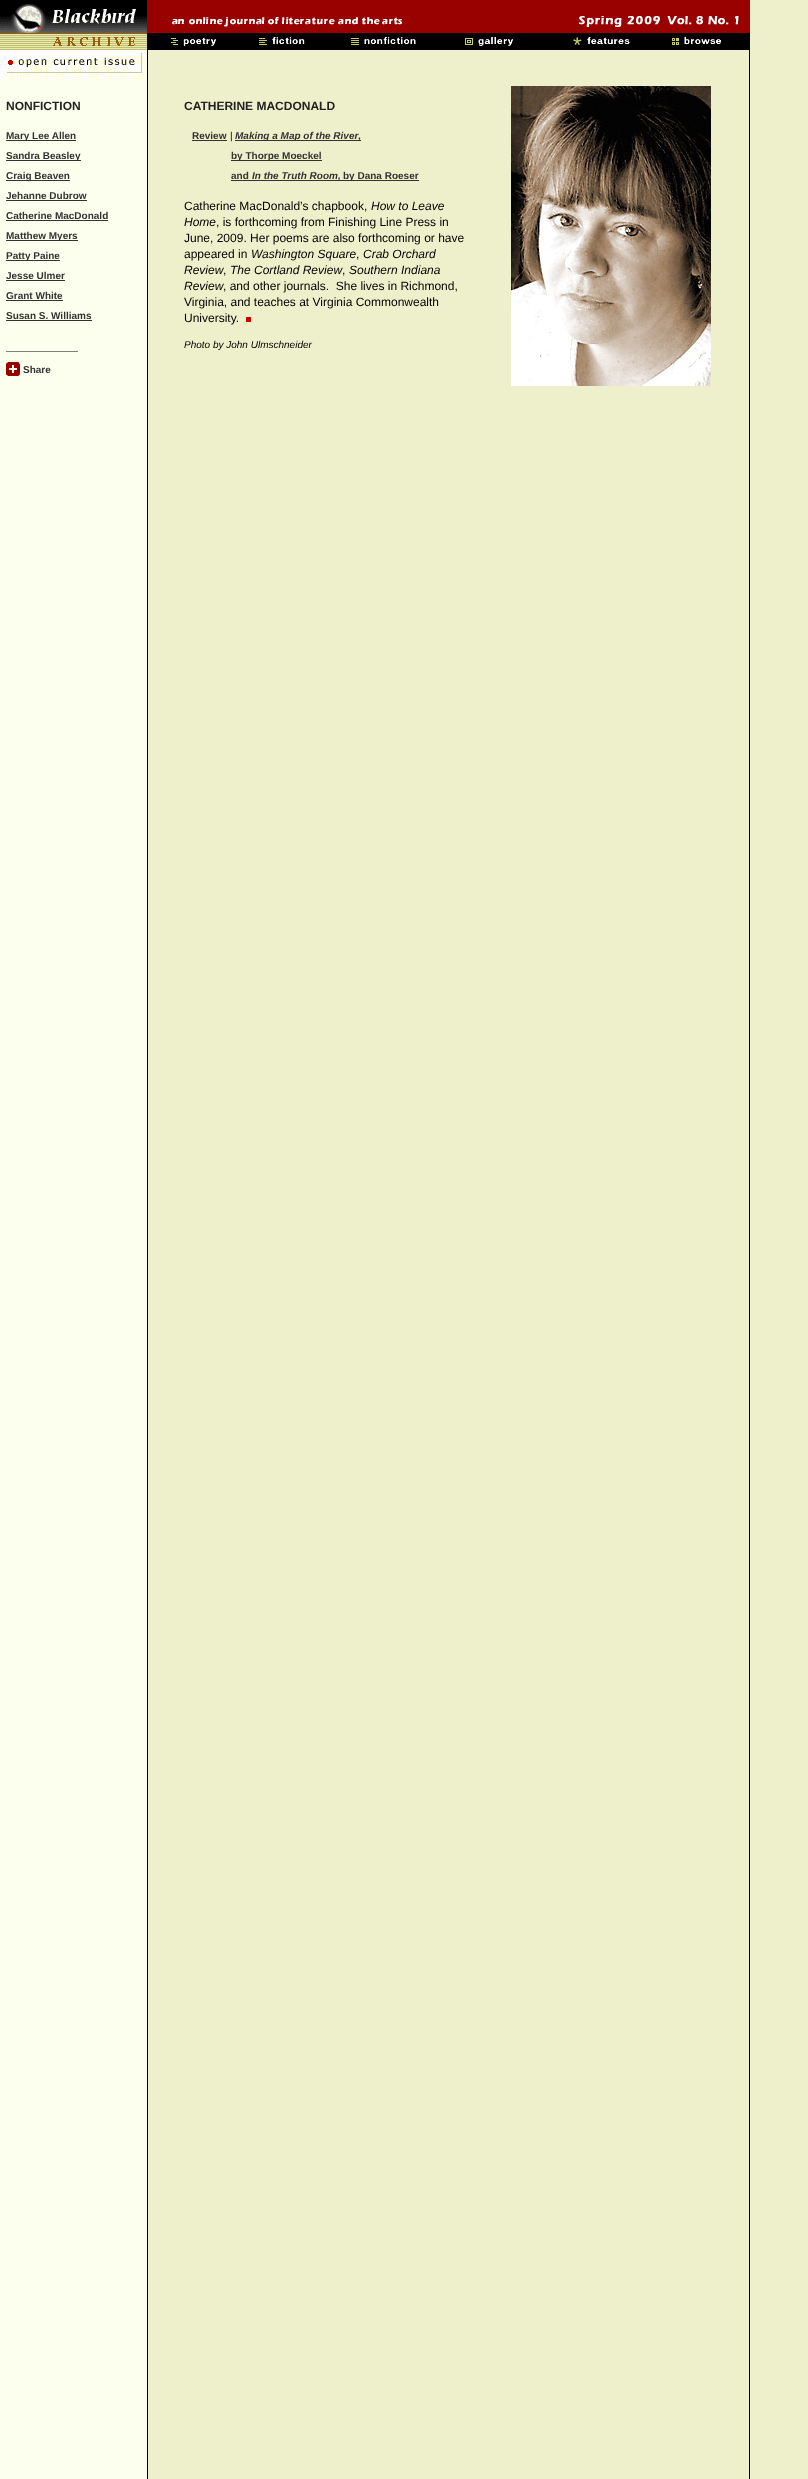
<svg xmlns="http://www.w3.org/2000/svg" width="808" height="2479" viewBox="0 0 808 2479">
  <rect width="100%" height="100%" fill="#eef0cc"/>
  <image x="0" y="50" width="750" height="2429" href="img1.png"/>
  <rect x="147" y="0" width="603" height="33" fill="#990000"/>
  <image x="0" y="0" width="147" height="33" href="img2.png"/>
  <image x="172" y="17" width="230" height="10" href="img3.png"/>
  <image x="579" y="16" width="160" height="11" href="img4.png"/>
  <rect x="147" y="33" width="603" height="17" fill="#000000"/>
  <image x="0" y="33" width="147" height="17" href="img5.png"/>
  <image x="171" y="37" width="45" height="9" href="img6.png"/>
  <image x="259" y="37" width="46" height="8" href="img7.png"/>
  <image x="351" y="37" width="65" height="8" href="img8.png"/>
  <image x="465" y="37" width="48" height="9" href="img9.png"/>
  <image x="573" y="37" width="57" height="8" href="img10.png"/>
  <image x="672" y="37" width="49" height="8" href="img11.png"/>
  <image x="0" y="50" width="146" height="30" href="img12.png"/>
  <text x="6" y="110" font-family="Liberation Sans" font-size="12" font-weight="bold" fill="#222222">NONFICTION</text>
  <rect x="6" y="140" width="70" height="1" fill="#333333"/>
  <text x="6" y="139" font-family="Liberation Sans" font-size="10" font-weight="bold" fill="#333333">Mary Lee Allen</text>
  <rect x="6" y="160" width="75" height="1" fill="#333333"/>
  <text x="6" y="159" font-family="Liberation Sans" font-size="10" font-weight="bold" fill="#333333">Sandra Beasley</text>
  <rect x="6" y="180" width="64" height="1" fill="#333333"/>
  <text x="6" y="179" font-family="Liberation Sans" font-size="10" font-weight="bold" fill="#333333">Craig Beaven</text>
  <text x="6" y="199" font-family="Liberation Sans" font-size="10" font-weight="bold" fill="#333333">Jehanne Dubrow</text>
  <rect x="6" y="200" width="81" height="1" fill="#333333"/>
  <text x="6" y="219" font-family="Liberation Sans" font-size="10" font-weight="bold" fill="#333333">Catherine MacDonald</text>
  <rect x="6" y="220" width="102" height="1" fill="#333333"/>
  <rect x="6" y="240" width="72" height="1" fill="#333333"/>
  <text x="6" y="239" font-family="Liberation Sans" font-size="10" font-weight="bold" fill="#333333">Matthew Myers</text>
  <rect x="6" y="260" width="54" height="1" fill="#333333"/>
  <text x="6" y="259" font-family="Liberation Sans" font-size="10" font-weight="bold" fill="#333333">Patty Paine</text>
  <text x="6" y="279" font-family="Liberation Sans" font-size="10" font-weight="bold" fill="#333333">Jesse Ulmer</text>
  <rect x="6" y="280" width="59" height="1" fill="#333333"/>
  <text x="6" y="299" font-family="Liberation Sans" font-size="10" font-weight="bold" fill="#333333">Grant White</text>
  <rect x="6" y="300" width="57" height="1" fill="#333333"/>
  <text x="6" y="319" font-family="Liberation Sans" font-size="10" font-weight="bold" fill="#333333">Susan S. Williams</text>
  <rect x="6" y="320" width="86" height="1" fill="#333333"/>
  <rect x="6" y="351" width="72" height="1" fill="#808080"/>
  <image x="6" y="362" width="14" height="14" href="img13.png"/>
  <text x="23" y="373" font-family="Liberation Sans" font-size="10" font-weight="bold" fill="#333333">Share</text>
  <text x="184" y="110" font-family="Liberation Sans" font-size="12" font-weight="bold" fill="#222222">CATHERINE MACDONALD</text>
  <image x="511" y="86" width="200" height="300" href="img14.png"/>
  <text x="192" y="139" font-family="Liberation Sans" font-size="10" font-weight="bold" fill="#333333">Review</text>
  <rect x="192" y="140" width="35" height="1" fill="#333333"/>
  <text x="230" y="139" font-family="Liberation Sans" font-size="10" fill="#000000">|</text>
  <rect x="235" y="140" width="123" height="1" fill="#333333"/>
  <text x="235" y="139" font-family="Liberation Sans" font-size="10" font-weight="bold" font-style="italic" fill="#333333">Making a Map of the River</text>
  <rect x="358" y="140" width="3" height="1" fill="#333333"/>
  <text x="358" y="139" font-family="Liberation Sans" font-size="10" font-weight="bold" fill="#333333">,</text>
  <rect x="231" y="160" width="91" height="1" fill="#333333"/>
  <text x="231" y="159" font-family="Liberation Sans" font-size="10" font-weight="bold" fill="#333333">by Thorpe Moeckel</text>
  <text x="231" y="179" font-family="Liberation Sans" font-size="10" font-weight="bold" fill="#333333">and</text>
  <rect x="231" y="180" width="188" height="1" fill="#333333"/>
  <text x="252" y="179" font-family="Liberation Sans" font-size="10" font-weight="bold" font-style="italic" fill="#333333">In the Truth Room,</text>
  <text x="343" y="179" font-family="Liberation Sans" font-size="10" font-weight="bold" fill="#333333">by Dana Roeser</text>
  <text x="184" y="210" font-family="Liberation Sans" font-size="12" fill="#000000">Catherine MacDonald’s chapbook,</text>
  <text x="371" y="210" font-family="Liberation Sans" font-size="12" font-style="italic" fill="#000000">How to Leave</text>
  <text x="184" y="226" font-family="Liberation Sans" font-size="12" font-style="italic" fill="#000000">Home</text>
  <text x="216" y="226" font-family="Liberation Sans" font-size="12" fill="#000000">, is forthcoming from Finishing Line Press in</text>
  <text x="184" y="242" font-family="Liberation Sans" font-size="12" fill="#000000">June, 2009. Her poems are also forthcoming or have</text>
  <text x="184" y="258" font-family="Liberation Sans" font-size="12" fill="#000000">appeared in</text>
  <text x="251" y="258" font-family="Liberation Sans" font-size="12" font-style="italic" fill="#000000">Washington Square</text>
  <text x="356" y="258" font-family="Liberation Sans" font-size="12" fill="#000000">,</text>
  <text x="363" y="258" font-family="Liberation Sans" font-size="12" font-style="italic" fill="#000000">Crab Orchard</text>
  <text x="184" y="274" font-family="Liberation Sans" font-size="12" font-style="italic" fill="#000000">Review</text>
  <text x="223" y="274" font-family="Liberation Sans" font-size="12" fill="#000000">,</text>
  <text x="230" y="274" font-family="Liberation Sans" font-size="12" font-style="italic" fill="#000000">The Cortland Review</text>
  <text x="342" y="274" font-family="Liberation Sans" font-size="12" fill="#000000">,</text>
  <text x="349" y="274" font-family="Liberation Sans" font-size="12" font-style="italic" fill="#000000">Southern Indiana</text>
  <text x="184" y="290" font-family="Liberation Sans" font-size="12" font-style="italic" fill="#000000">Review</text>
  <text x="223" y="290" font-family="Liberation Sans" font-size="12" fill="#000000" xml:space="preserve">, and other journals.  She lives in Richmond,</text>
  <text x="184" y="306" font-family="Liberation Sans" font-size="12" fill="#000000">Virginia, and teaches at Virginia Commonwealth</text>
  <text x="184" y="322" font-family="Liberation Sans" font-size="12" fill="#000000">University.</text>
  <rect x="246" y="317" width="5" height="5" fill="#cc0000"/>
  <text x="184" y="348" font-family="Liberation Sans" font-size="10" font-style="italic" fill="#000000">Photo by John Ulmschneider</text>
</svg>
